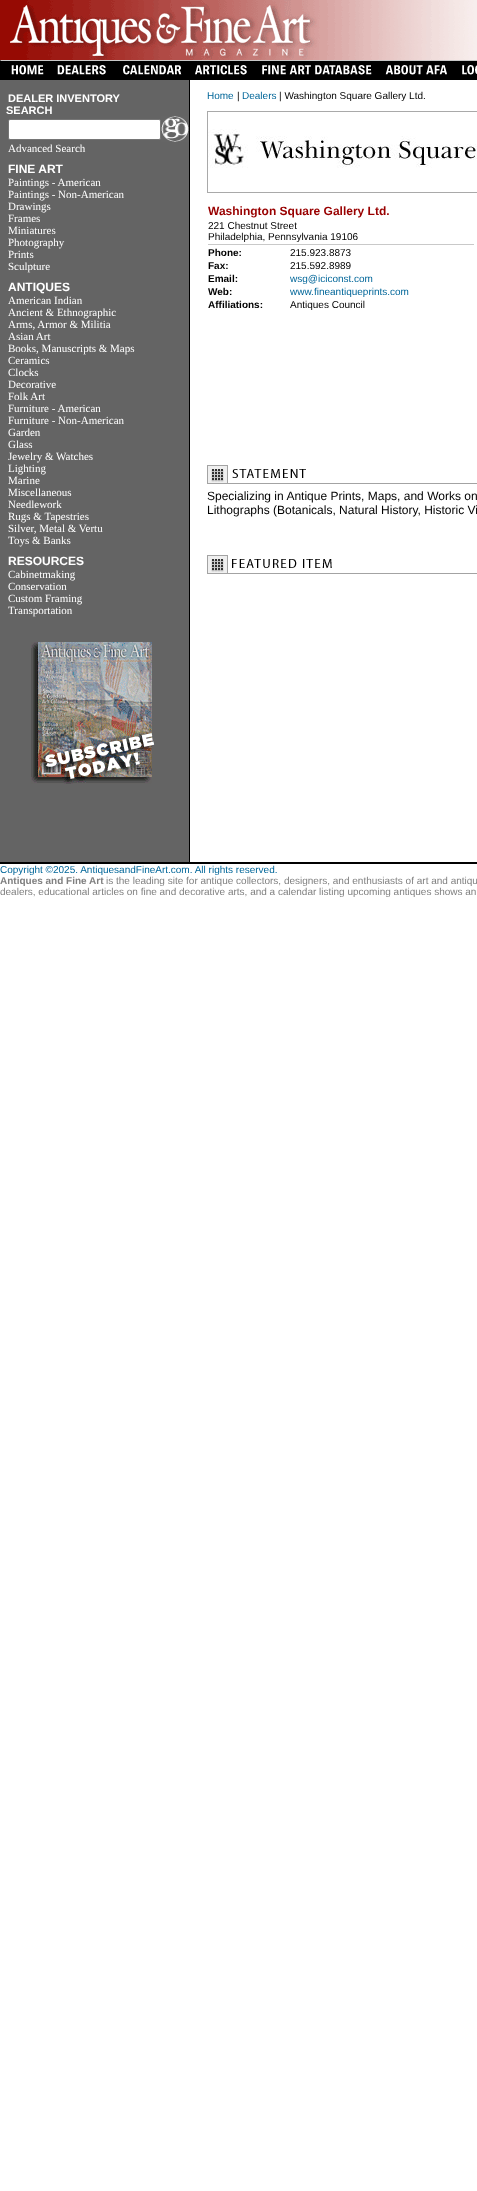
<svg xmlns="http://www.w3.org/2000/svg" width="477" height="2191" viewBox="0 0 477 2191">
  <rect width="100%" height="100%" fill="#ffffff"/>
  <image x="0" y="0" width="477" height="60" href="img1.png"/>
  <rect x="0" y="75" width="477" height="5" fill="#000000"/>
  <image x="0" y="60" width="51" height="15" href="img2.png"/>
  <image x="51" y="60" width="64" height="15" href="img3.png"/>
  <image x="115" y="60" width="74" height="15" href="img4.png"/>
  <image x="189" y="60" width="66" height="15" href="img5.png"/>
  <image x="255" y="60" width="124" height="15" href="img6.png"/>
  <image x="379" y="60" width="76" height="15" href="img7.png"/>
  <image x="455" y="60" width="22" height="15" href="img8.png"/>
  <rect x="0" y="80" width="189" height="782" fill="#646464"/>
  <text x="8" y="102" font-family="Liberation Sans" font-size="11" font-weight="bold" fill="#ffffff">DEALER INVENTORY</text>
  <text x="6" y="114" font-family="Liberation Sans" font-size="11" font-weight="bold" fill="#ffffff">SEARCH</text>
  <rect x="8.5" y="119.5" width="152" height="20" rx="1.5" fill="#ffffff" stroke="#767676"/>
  <image x="161" y="116" width="28" height="26" href="img9.png"/>
  <text x="8" y="152" font-family="Liberation Serif" font-size="11" fill="#ffffff">Advanced Search</text>
  <text x="8" y="173" font-family="Liberation Sans" font-size="12" font-weight="bold" fill="#ffffff">FINE ART</text>
  <text x="8" y="186" font-family="Liberation Serif" font-size="11" fill="#ffffff">Paintings - American</text>
  <text x="8" y="198" font-family="Liberation Serif" font-size="11" fill="#ffffff">Paintings - Non-American</text>
  <text x="8" y="210" font-family="Liberation Serif" font-size="11" fill="#ffffff">Drawings</text>
  <text x="8" y="222" font-family="Liberation Serif" font-size="11" fill="#ffffff">Frames</text>
  <text x="8" y="234" font-family="Liberation Serif" font-size="11" fill="#ffffff">Miniatures</text>
  <text x="8" y="246" font-family="Liberation Serif" font-size="11" fill="#ffffff">Photography</text>
  <text x="8" y="258" font-family="Liberation Serif" font-size="11" fill="#ffffff">Prints</text>
  <text x="8" y="270" font-family="Liberation Serif" font-size="11" fill="#ffffff">Sculpture</text>
  <text x="8" y="291" font-family="Liberation Sans" font-size="12" font-weight="bold" fill="#ffffff">ANTIQUES</text>
  <text x="8" y="304" font-family="Liberation Serif" font-size="11" fill="#ffffff">American Indian</text>
  <text x="8" y="316" font-family="Liberation Serif" font-size="11" fill="#ffffff">Ancient &amp; Ethnographic</text>
  <text x="8" y="328" font-family="Liberation Serif" font-size="11" fill="#ffffff">Arms, Armor &amp; Militia</text>
  <text x="8" y="340" font-family="Liberation Serif" font-size="11" fill="#ffffff">Asian Art</text>
  <text x="8" y="352" font-family="Liberation Serif" font-size="11" fill="#ffffff">Books, Manuscripts &amp; Maps</text>
  <text x="8" y="364" font-family="Liberation Serif" font-size="11" fill="#ffffff">Ceramics</text>
  <text x="8" y="376" font-family="Liberation Serif" font-size="11" fill="#ffffff">Clocks</text>
  <text x="8" y="388" font-family="Liberation Serif" font-size="11" fill="#ffffff">Decorative</text>
  <text x="8" y="400" font-family="Liberation Serif" font-size="11" fill="#ffffff">Folk Art</text>
  <text x="8" y="412" font-family="Liberation Serif" font-size="11" fill="#ffffff">Furniture - American</text>
  <text x="8" y="424" font-family="Liberation Serif" font-size="11" fill="#ffffff">Furniture - Non-American</text>
  <text x="8" y="436" font-family="Liberation Serif" font-size="11" fill="#ffffff">Garden</text>
  <text x="8" y="448" font-family="Liberation Serif" font-size="11" fill="#ffffff">Glass</text>
  <text x="8" y="460" font-family="Liberation Serif" font-size="11" fill="#ffffff">Jewelry &amp; Watches</text>
  <text x="8" y="472" font-family="Liberation Serif" font-size="11" fill="#ffffff">Lighting</text>
  <text x="8" y="484" font-family="Liberation Serif" font-size="11" fill="#ffffff">Marine</text>
  <text x="8" y="496" font-family="Liberation Serif" font-size="11" fill="#ffffff">Miscellaneous</text>
  <text x="8" y="508" font-family="Liberation Serif" font-size="11" fill="#ffffff">Needlework</text>
  <text x="8" y="520" font-family="Liberation Serif" font-size="11" fill="#ffffff">Rugs &amp; Tapestries</text>
  <text x="8" y="532" font-family="Liberation Serif" font-size="11" fill="#ffffff">Silver, Metal &amp; Vertu</text>
  <text x="8" y="544" font-family="Liberation Serif" font-size="11" fill="#ffffff">Toys &amp; Banks</text>
  <text x="8" y="565" font-family="Liberation Sans" font-size="12" font-weight="bold" fill="#ffffff">RESOURCES</text>
  <text x="8" y="578" font-family="Liberation Serif" font-size="11" fill="#ffffff">Cabinetmaking</text>
  <text x="8" y="590" font-family="Liberation Serif" font-size="11" fill="#ffffff">Conservation</text>
  <text x="8" y="602" font-family="Liberation Serif" font-size="11" fill="#ffffff">Custom Framing</text>
  <text x="8" y="614" font-family="Liberation Serif" font-size="11" fill="#ffffff">Transportation</text>
  <image x="31" y="642" width="124" height="142" href="img10.png"/>
  <rect x="189" y="80" width="1" height="782" fill="#000000"/>
  <text x="207" y="99" font-family="Liberation Sans" font-size="10" fill="#006699">Home</text>
  <text x="237" y="99" font-family="Liberation Sans" font-size="10" fill="#000000">|</text>
  <text x="242" y="99" font-family="Liberation Sans" font-size="10" fill="#006699">Dealers</text>
  <text x="279" y="99" font-family="Liberation Sans" font-size="10" fill="#000000">| Washington Square Gallery Ltd.</text>
  <rect x="207" y="111" width="270" height="82" fill="#a9a9a9"/>
  <rect x="208" y="112" width="269" height="80" fill="#ffffff"/>
  <image x="208" y="129" width="269" height="39" href="img11.png"/>
  <text x="208" y="215" font-family="Liberation Sans" font-size="12" font-weight="bold" fill="#990000">Washington Square Gallery Ltd.</text>
  <text x="208" y="229" font-family="Liberation Sans" font-size="10" fill="#000000">221 Chestnut Street</text>
  <text x="208" y="240" font-family="Liberation Sans" font-size="10" fill="#000000">Philadelphia, Pennsylvania 19106</text>
  <rect x="208" y="244" width="266" height="1" fill="#c9c9c9"/>
  <text x="208" y="256" font-family="Liberation Sans" font-size="10" font-weight="bold" fill="#000000">Phone:</text>
  <text x="290" y="256" font-family="Liberation Sans" font-size="10" fill="#000000">215.923.8873</text>
  <text x="208" y="269" font-family="Liberation Sans" font-size="10" font-weight="bold" fill="#000000">Fax:</text>
  <text x="290" y="269" font-family="Liberation Sans" font-size="10" fill="#000000">215.592.8989</text>
  <text x="208" y="282" font-family="Liberation Sans" font-size="10" font-weight="bold" fill="#000000">Email:</text>
  <text x="290" y="282" font-family="Liberation Sans" font-size="10" fill="#006699">wsg@iciconst.com</text>
  <text x="208" y="295" font-family="Liberation Sans" font-size="10" font-weight="bold" fill="#000000">Web:</text>
  <text x="290" y="295" font-family="Liberation Sans" font-size="10" fill="#006699">www.fineantiqueprints.com</text>
  <text x="208" y="308" font-family="Liberation Sans" font-size="10" font-weight="bold" fill="#000000">Affiliations:</text>
  <text x="290" y="308" font-family="Liberation Sans" font-size="10" fill="#000000">Antiques Council</text>
  <image x="207" y="465" width="270" height="19" href="img12.png"/>
  <text x="207" y="500" font-family="Liberation Sans" font-size="12" fill="#000000">Specializing in Antique Prints, Maps, and Works on</text>
  <text x="207" y="514" font-family="Liberation Sans" font-size="12" fill="#000000">Lithographs (Botanicals, Natural History, Historic Vi</text>
  <image x="207" y="555" width="270" height="19" href="img13.png"/>
  <rect x="0" y="862" width="477" height="2" fill="#000000"/>
  <text x="0" y="873" font-family="Liberation Sans" font-size="10" fill="#006699">Copyright ©2025. AntiquesandFineArt.com. All rights reserved.</text>
  <text x="0" y="884" font-family="Liberation Sans" font-size="10" font-weight="bold" fill="#808080">Antiques and Fine Art</text>
  <text x="106" y="884" font-family="Liberation Sans" font-size="10" fill="#808080">is the leading site for antique collectors, designers, and enthusiasts of art and antiqu</text>
  <text x="0" y="895" font-family="Liberation Sans" font-size="10" fill="#808080">dealers, educational articles on fine and decorative arts, and a calendar listing upcoming antiques shows an</text>
</svg>
